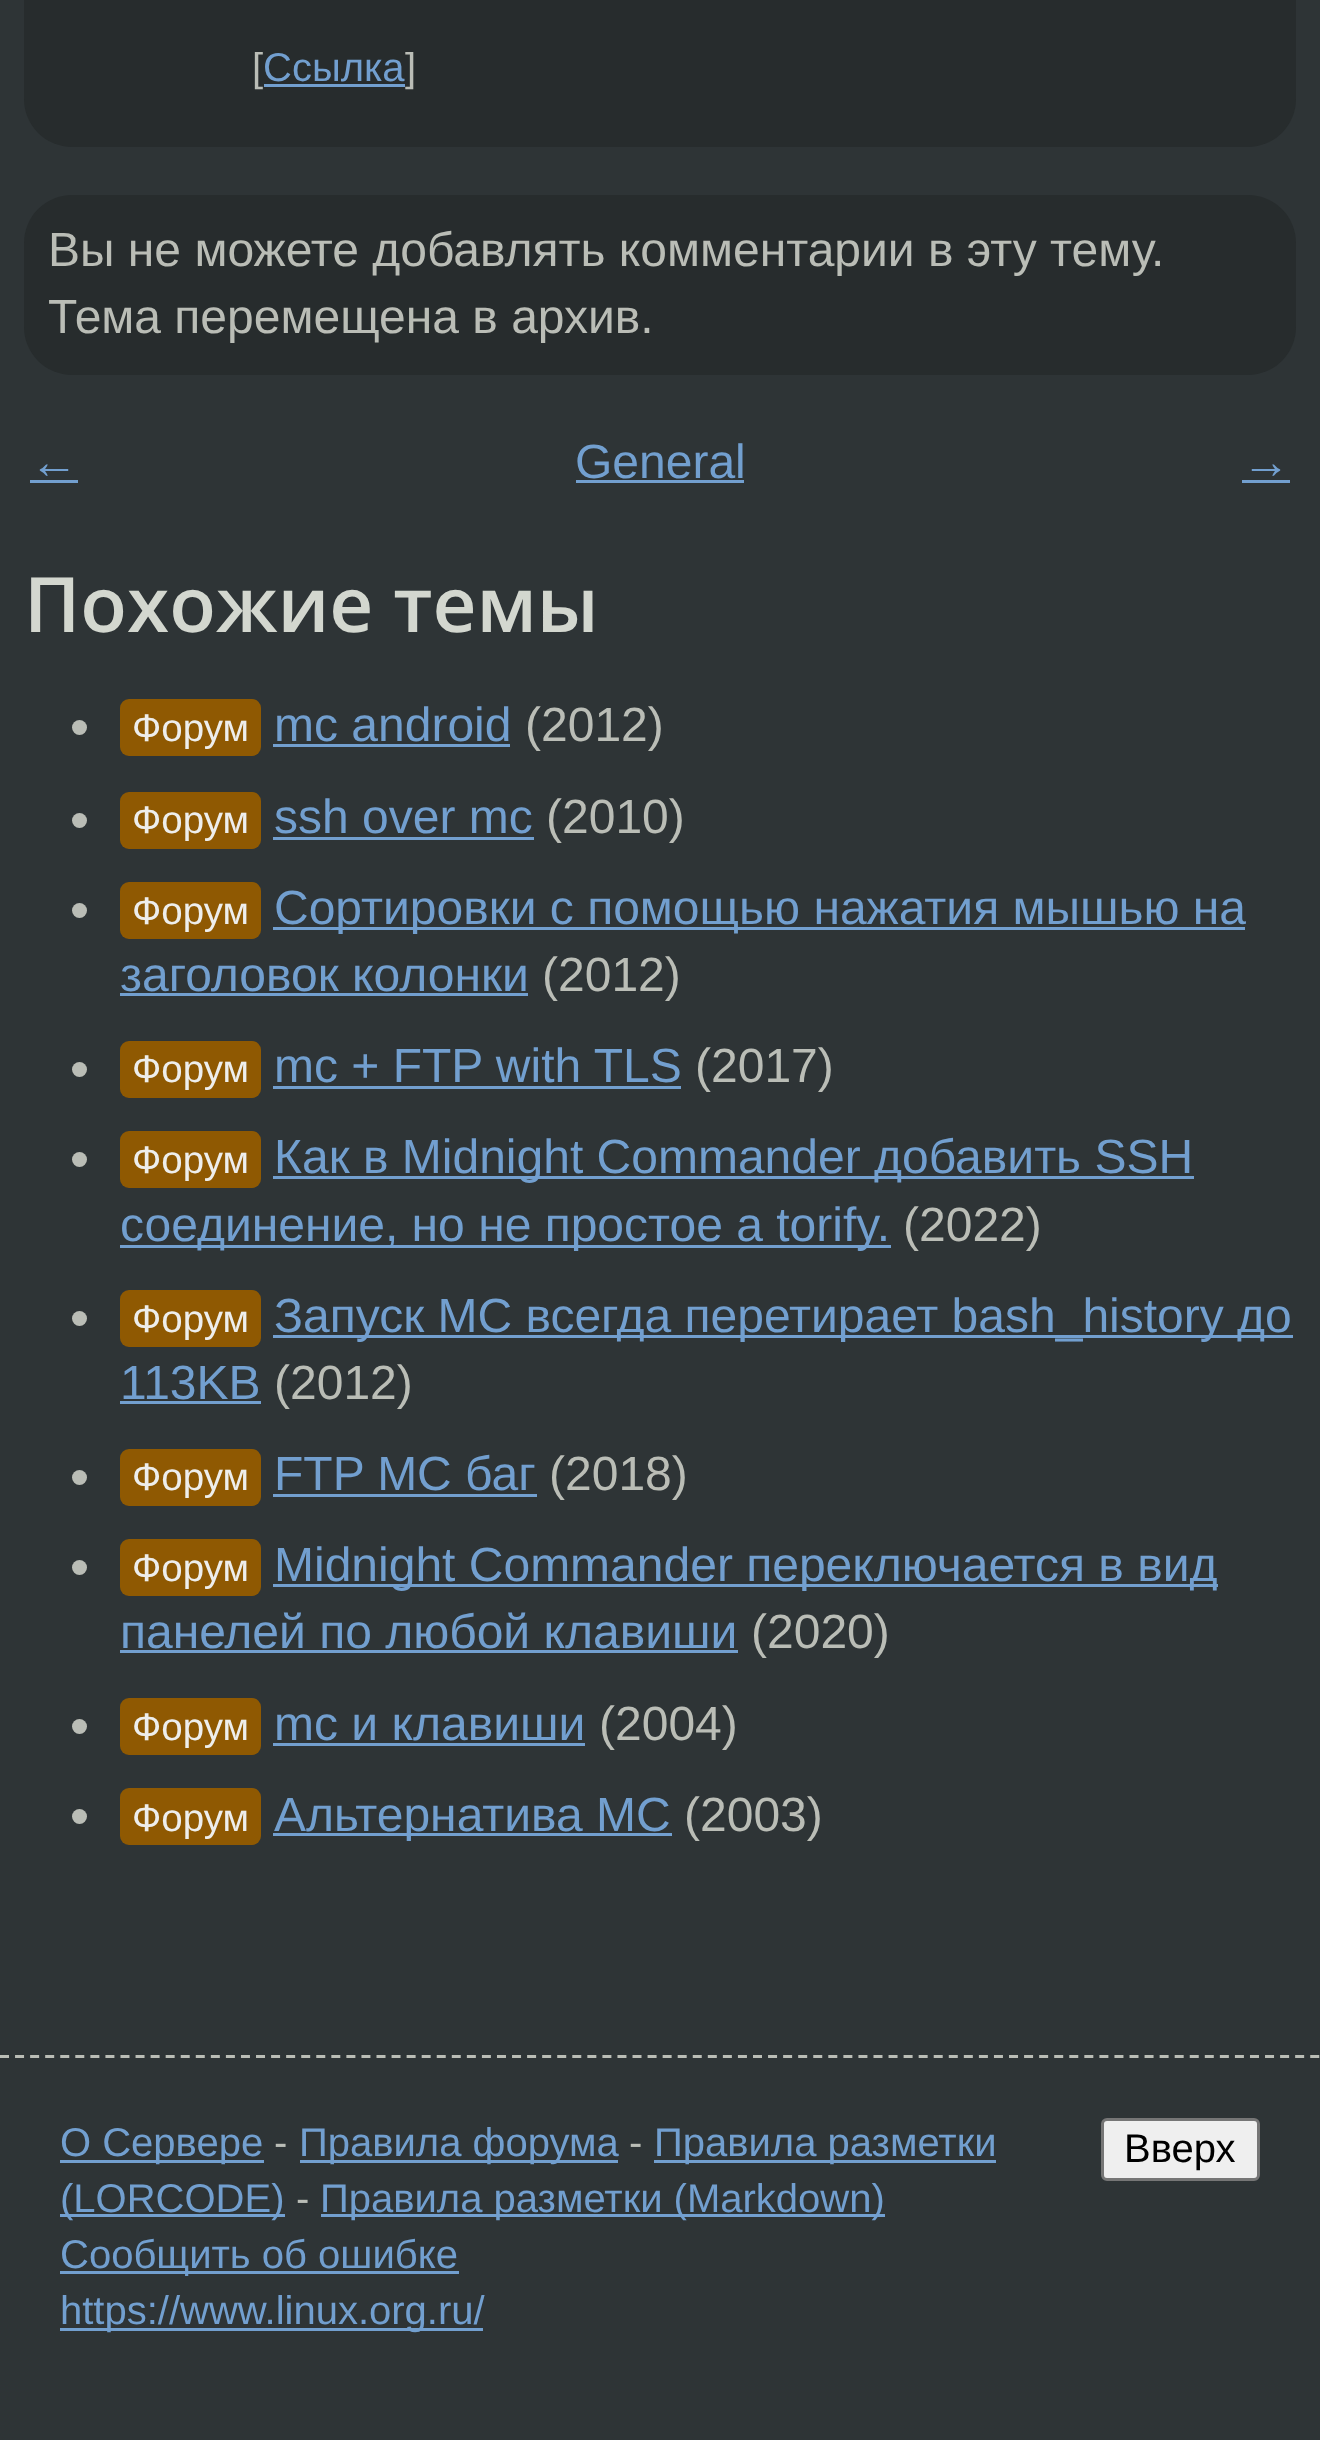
<svg xmlns="http://www.w3.org/2000/svg" width="1320" height="2440" viewBox="0 0 1320 2440">
  <rect width="100%" height="100%" fill="#2e3436"/>
  <rect x="24" y="-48" width="1272" height="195" rx="48" fill="#272c2d"/>
  <text x="252" y="81" font-family="Liberation Sans" font-size="40" fill="#babdb6">[</text>
  <text x="263" y="81" font-family="Liberation Sans" font-size="40" fill="#729fcf">Ссылка</text>
  <rect x="264" y="84" width="141" height="3" fill="#729fcf"/>
  <text x="405" y="81" font-family="Liberation Sans" font-size="40" fill="#babdb6">]</text>
  <rect x="24" y="195" width="1272" height="180" rx="48" fill="#272c2d"/>
  <text x="48" y="266" font-family="Liberation Sans" font-size="48" fill="#babdb6">Вы не можете добавлять комментарии в эту тему.</text>
  <text x="48" y="333" font-family="Liberation Sans" font-size="48" fill="#babdb6">Тема перемещена в архив.</text>
  <text x="30" y="478" font-family="Liberation Sans" font-size="48" fill="#729fcf">←</text>
  <rect x="30" y="480" width="48" height="3" fill="#729fcf"/>
  <text x="575" y="478" font-family="Liberation Sans" font-size="48" fill="#729fcf">General</text>
  <rect x="576" y="480" width="168" height="3" fill="#729fcf"/>
  <text x="1242" y="478" font-family="Liberation Sans" font-size="48" fill="#729fcf">→</text>
  <rect x="1242" y="480" width="48" height="3" fill="#729fcf"/>
  <text x="24" y="632" font-family="Open Sans" font-size="76.5" font-weight="600" fill="#d3d7cf">Похожие темы</text>
  <circle cx="79.5" cy="727.5" r="7.5" fill="#babdb6"/>
  <rect x="120" y="699" width="141" height="57" rx="9" fill="#8f5902"/>
  <text x="132" y="741" font-family="Liberation Sans" font-size="38.5" fill="#eeeeec">Форум</text>
  <text x="274" y="741" font-family="Liberation Sans" font-size="48" fill="#729fcf">mc android</text>
  <rect x="273" y="744" width="237" height="3" fill="#729fcf"/>
  <text x="525" y="741" font-family="Liberation Sans" font-size="48" fill="#babdb6">(2012)</text>
  <circle cx="79.5" cy="820.5" r="7.5" fill="#babdb6"/>
  <rect x="120" y="792" width="141" height="57" rx="9" fill="#8f5902"/>
  <text x="132" y="833" font-family="Liberation Sans" font-size="38.5" fill="#eeeeec">Форум</text>
  <text x="274" y="833" font-family="Liberation Sans" font-size="48" fill="#729fcf">ssh over mc</text>
  <rect x="273" y="837" width="261" height="3" fill="#729fcf"/>
  <text x="546" y="833" font-family="Liberation Sans" font-size="48" fill="#babdb6">(2010)</text>
  <circle cx="79.5" cy="910.5" r="7.5" fill="#babdb6"/>
  <rect x="120" y="882" width="141" height="57" rx="9" fill="#8f5902"/>
  <text x="132" y="924" font-family="Liberation Sans" font-size="38.5" fill="#eeeeec">Форум</text>
  <rect x="273" y="927" width="972" height="3" fill="#729fcf"/>
  <text x="274" y="924" font-family="Liberation Sans" font-size="48" fill="#729fcf">Сортировки с помощью нажатия мышью на</text>
  <text x="120" y="991" font-family="Liberation Sans" font-size="48" fill="#729fcf">заголовок колонки</text>
  <rect x="120" y="993" width="408" height="3" fill="#729fcf"/>
  <text x="542" y="991" font-family="Liberation Sans" font-size="48" fill="#babdb6">(2012)</text>
  <circle cx="79.5" cy="1069.5" r="7.5" fill="#babdb6"/>
  <rect x="120" y="1041" width="141" height="57" rx="9" fill="#8f5902"/>
  <text x="132" y="1082" font-family="Liberation Sans" font-size="38.5" fill="#eeeeec">Форум</text>
  <text x="274" y="1082" font-family="Liberation Sans" font-size="48" fill="#729fcf">mc + FTP with TLS</text>
  <rect x="273" y="1086" width="408" height="3" fill="#729fcf"/>
  <text x="695" y="1082" font-family="Liberation Sans" font-size="48" fill="#babdb6">(2017)</text>
  <circle cx="79.5" cy="1159.5" r="7.5" fill="#babdb6"/>
  <rect x="120" y="1131" width="141" height="57" rx="9" fill="#8f5902"/>
  <text x="132" y="1173" font-family="Liberation Sans" font-size="38.5" fill="#eeeeec">Форум</text>
  <rect x="273" y="1176" width="921" height="3" fill="#729fcf"/>
  <text x="274" y="1173" font-family="Liberation Sans" font-size="48" fill="#729fcf">Как в Midnight Commander добавить SSH</text>
  <rect x="120" y="1245" width="771" height="3" fill="#729fcf"/>
  <text x="120" y="1241" font-family="Liberation Sans" font-size="48" fill="#729fcf">соединение, но не простое а torify.</text>
  <text x="903" y="1241" font-family="Liberation Sans" font-size="48" fill="#babdb6">(2022)</text>
  <circle cx="79.5" cy="1318.5" r="7.5" fill="#babdb6"/>
  <rect x="120" y="1290" width="141" height="57" rx="9" fill="#8f5902"/>
  <text x="132" y="1332" font-family="Liberation Sans" font-size="38.5" fill="#eeeeec">Форум</text>
  <rect x="273" y="1335" width="1020" height="3" fill="#729fcf"/>
  <text x="274" y="1332" font-family="Liberation Sans" font-size="48" fill="#729fcf">Запуск MC всегда перетирает bash_history до</text>
  <text x="120" y="1399" font-family="Liberation Sans" font-size="48" fill="#729fcf">113KB</text>
  <rect x="120" y="1401" width="141" height="3" fill="#729fcf"/>
  <text x="274" y="1399" font-family="Liberation Sans" font-size="48" fill="#babdb6">(2012)</text>
  <circle cx="79.5" cy="1477.5" r="7.5" fill="#babdb6"/>
  <rect x="120" y="1449" width="141" height="57" rx="9" fill="#8f5902"/>
  <text x="132" y="1490" font-family="Liberation Sans" font-size="38.5" fill="#eeeeec">Форум</text>
  <text x="274" y="1490" font-family="Liberation Sans" font-size="48" fill="#729fcf">FTP MC баг</text>
  <rect x="273" y="1494" width="264" height="3" fill="#729fcf"/>
  <text x="549" y="1490" font-family="Liberation Sans" font-size="48" fill="#babdb6">(2018)</text>
  <circle cx="79.5" cy="1567.5" r="7.5" fill="#babdb6"/>
  <rect x="120" y="1539" width="141" height="57" rx="9" fill="#8f5902"/>
  <text x="132" y="1581" font-family="Liberation Sans" font-size="38.5" fill="#eeeeec">Форум</text>
  <rect x="273" y="1584" width="945" height="3" fill="#729fcf"/>
  <text x="274" y="1581" font-family="Liberation Sans" font-size="48" fill="#729fcf">Midnight Commander переключается в вид</text>
  <text x="120" y="1648" font-family="Liberation Sans" font-size="48" fill="#729fcf">панелей по любой клавиши</text>
  <rect x="120" y="1650" width="618" height="3" fill="#729fcf"/>
  <text x="751" y="1648" font-family="Liberation Sans" font-size="48" fill="#babdb6">(2020)</text>
  <circle cx="79.5" cy="1726.5" r="7.5" fill="#babdb6"/>
  <rect x="120" y="1698" width="141" height="57" rx="9" fill="#8f5902"/>
  <text x="132" y="1740" font-family="Liberation Sans" font-size="38.5" fill="#eeeeec">Форум</text>
  <text x="274" y="1740" font-family="Liberation Sans" font-size="48" fill="#729fcf">mc и клавиши</text>
  <rect x="273" y="1743" width="312" height="3" fill="#729fcf"/>
  <text x="599" y="1740" font-family="Liberation Sans" font-size="48" fill="#babdb6">(2004)</text>
  <circle cx="79.5" cy="1816.5" r="7.5" fill="#babdb6"/>
  <rect x="120" y="1788" width="141" height="57" rx="9" fill="#8f5902"/>
  <text x="132" y="1831" font-family="Liberation Sans" font-size="38.5" fill="#eeeeec">Форум</text>
  <rect x="273" y="1833" width="399" height="3" fill="#729fcf"/>
  <text x="274" y="1831" font-family="Liberation Sans" font-size="48" fill="#729fcf">Альтернатива MC</text>
  <text x="684" y="1831" font-family="Liberation Sans" font-size="48" fill="#babdb6">(2003)</text>
  <path d="M0 2056.5H1320" fill="none" stroke="#babdb6" stroke-width="3" stroke-dasharray="9 6.06"/>
  <rect x="60" y="2160" width="204" height="3" fill="#729fcf"/>
  <text x="60" y="2156" font-family="Liberation Sans" font-size="40" fill="#729fcf">О Сервере</text>
  <text x="274" y="2156" font-family="Liberation Sans" font-size="40" fill="#babdb6">-</text>
  <rect x="300" y="2160" width="318" height="3" fill="#729fcf"/>
  <text x="299" y="2156" font-family="Liberation Sans" font-size="40" fill="#729fcf">Правила форума</text>
  <text x="629" y="2156" font-family="Liberation Sans" font-size="40" fill="#babdb6">-</text>
  <rect x="654" y="2160" width="342" height="3" fill="#729fcf"/>
  <text x="654" y="2156" font-family="Liberation Sans" font-size="40" fill="#729fcf">Правила разметки</text>
  <rect x="60" y="2214" width="225" height="3" fill="#729fcf"/>
  <text x="60" y="2212" font-family="Liberation Sans" font-size="40" fill="#729fcf">(LORCODE)</text>
  <text x="296" y="2212" font-family="Liberation Sans" font-size="40" fill="#babdb6">-</text>
  <rect x="321" y="2214" width="564" height="3" fill="#729fcf"/>
  <text x="320" y="2212" font-family="Liberation Sans" font-size="40" fill="#729fcf">Правила разметки (Markdown)</text>
  <rect x="60" y="2271" width="399" height="3" fill="#729fcf"/>
  <text x="60" y="2268" font-family="Liberation Sans" font-size="40" fill="#729fcf">Сообщить об ошибке</text>
  <rect x="60" y="2328" width="423" height="3" fill="#729fcf"/>
  <text x="60" y="2324" font-family="Liberation Sans" font-size="40" fill="#729fcf">https://www.linux.org.ru/</text>
  <rect x="1102.5" y="2119.5" width="156" height="60" rx="4.5" fill="#efefef" stroke="#767676" stroke-width="3"/>
  <text x="1124" y="2162" font-family="Liberation Sans" font-size="40" fill="#000000">Вверх</text>
</svg>
